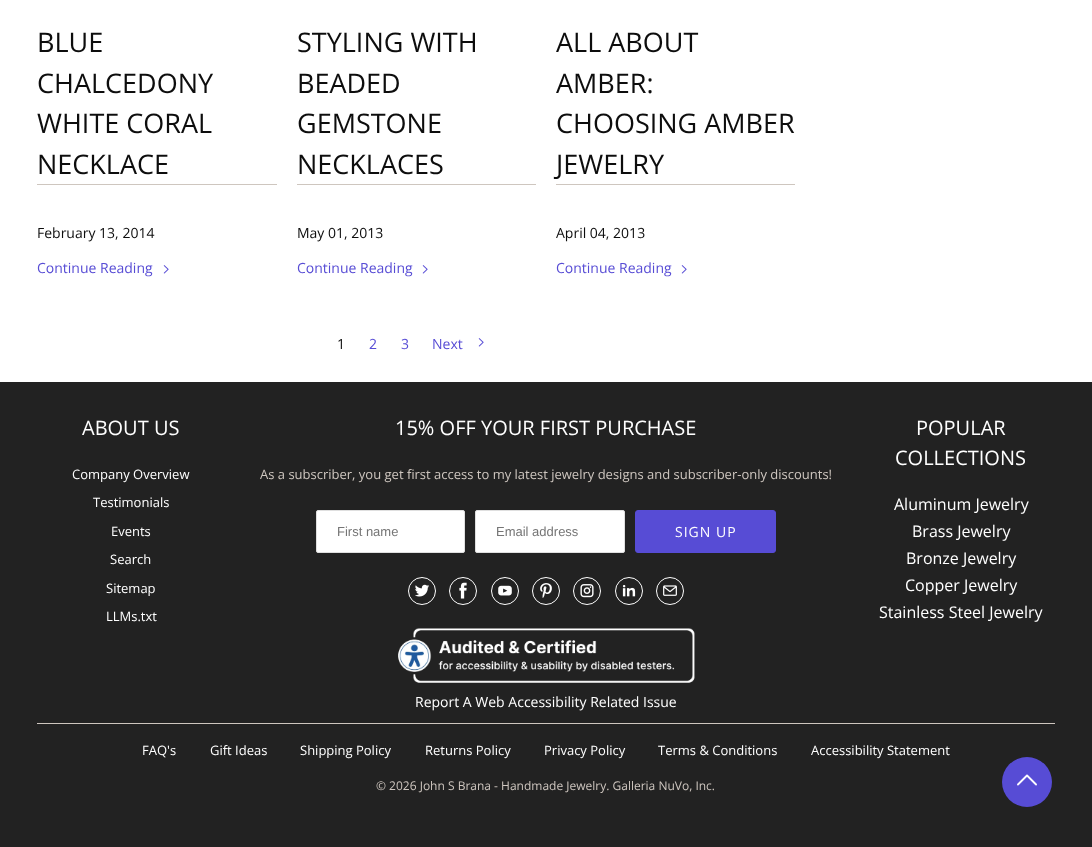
<svg xmlns="http://www.w3.org/2000/svg" width="1092" height="847" viewBox="0 0 1092 847">
  <rect width="100%" height="100%" fill="#ffffff"/>
  <rect x="37" y="184" width="240" height="1" fill="#cec6bf"/>
  <text x="37" y="52" font-family="Open Sans" font-size="27" fill="#0d0d0d">BLUE</text>
  <text x="37" y="93" font-family="Open Sans" font-size="27" fill="#0d0d0d">CHALCEDONY</text>
  <text x="37" y="133" font-family="Open Sans" font-size="27" fill="#0d0d0d">WHITE CORAL</text>
  <text x="37" y="174" font-family="Open Sans" font-size="27" fill="#0d0d0d">NECKLACE</text>
  <text x="37" y="238" font-family="Open Sans" font-size="14" fill="#0d0d0d">February 13, 2014</text>
  <text x="37" y="273" font-family="Open Sans" font-size="14" fill="#574cd5">Continue Reading</text>
  <image x="163" y="265" width="6" height="9" href="img1.png"/>
  <rect x="297" y="184" width="239" height="1" fill="#cec6bf"/>
  <text x="297" y="52" font-family="Open Sans" font-size="27" fill="#0d0d0d">STYLING WITH</text>
  <text x="297" y="93" font-family="Open Sans" font-size="27" fill="#0d0d0d">BEADED</text>
  <text x="297" y="133" font-family="Open Sans" font-size="27" fill="#0d0d0d">GEMSTONE</text>
  <text x="297" y="174" font-family="Open Sans" font-size="27" fill="#0d0d0d">NECKLACES</text>
  <text x="297" y="238" font-family="Open Sans" font-size="14" fill="#0d0d0d">May 01, 2013</text>
  <text x="297" y="273" font-family="Open Sans" font-size="14" fill="#574cd5">Continue Reading</text>
  <image x="422" y="265" width="6" height="9" href="img1.png"/>
  <rect x="556" y="184" width="239" height="1" fill="#cec6bf"/>
  <text x="556" y="52" font-family="Open Sans" font-size="27" fill="#0d0d0d">ALL ABOUT</text>
  <text x="556" y="93" font-family="Open Sans" font-size="27" fill="#0d0d0d">AMBER:</text>
  <text x="556" y="133" font-family="Open Sans" font-size="27" fill="#0d0d0d">CHOOSING AMBER</text>
  <text x="556" y="174" font-family="Open Sans" font-size="27" fill="#0d0d0d">JEWELRY</text>
  <text x="556" y="238" font-family="Open Sans" font-size="14" fill="#0d0d0d">April 04, 2013</text>
  <text x="556" y="273" font-family="Open Sans" font-size="14" fill="#574cd5">Continue Reading</text>
  <image x="681" y="265" width="6" height="9" href="img1.png"/>
  <text x="337" y="349" font-family="Open Sans" font-size="14" fill="#0d0d0d">1</text>
  <text x="369" y="349" font-family="Open Sans" font-size="14" fill="#574cd5">2</text>
  <text x="401" y="349" font-family="Open Sans" font-size="14" fill="#574cd5">3</text>
  <text x="432" y="349" font-family="Open Sans" font-size="14" fill="#574cd5">Next</text>
  <image x="478" y="338" width="6" height="9" href="img1.png"/>
  <rect x="0" y="382" width="1092" height="465" fill="#222222"/>
  <text x="82" y="435" font-family="Open Sans" font-size="20" fill="#ffffff">ABOUT US</text>
  <text x="72" y="479" font-family="Open Sans" font-size="13" fill="#ffffff">Company Overview</text>
  <text x="93" y="507" font-family="Open Sans" font-size="13" fill="#ffffff">Testimonials</text>
  <text x="111" y="536" font-family="Open Sans" font-size="13" fill="#ffffff">Events</text>
  <text x="110" y="564" font-family="Open Sans" font-size="13" fill="#ffffff">Search</text>
  <text x="106" y="593" font-family="Open Sans" font-size="13" fill="#ffffff">Sitemap</text>
  <text x="106" y="621" font-family="Open Sans" font-size="13" fill="#ffffff">LLMs.txt</text>
  <text x="395" y="435" font-family="Open Sans" font-size="20" fill="#ffffff">15% OFF YOUR FIRST PURCHASE</text>
  <text x="260" y="479" font-family="Open Sans" font-size="13" fill="#cec6bf">As a subscriber, you get first access to my latest jewelry designs and subscriber-only discounts!</text>
  <rect x="316.5" y="510.5" width="148" height="42" rx="1.5" fill="#ffffff" stroke="#dfdfdf"/>
  <text x="337" y="536" font-family="Liberation Sans" font-size="13" fill="#757575">First name</text>
  <rect x="475.5" y="510.5" width="149" height="42" rx="1.5" fill="#ffffff" stroke="#dfdfdf"/>
  <text x="496" y="536" font-family="Liberation Sans" font-size="13" fill="#757575">Email address</text>
  <rect x="635.5" y="510.5" width="140" height="42" rx="2.5" fill="#574cd5" stroke="#574cd5"/>
  <text x="675" y="537" font-family="Open Sans" font-size="14" letter-spacing="1" fill="#ffffff">SIGN UP</text>
  <circle cx="422" cy="591" r="13.5" fill="none" stroke="#ffffff"/>
  <image x="415" y="584" width="14" height="13" href="img2.png"/>
  <circle cx="463" cy="591" r="13.5" fill="none" stroke="#ffffff"/>
  <image x="459" y="582" width="8" height="17" href="img3.png"/>
  <circle cx="505" cy="591" r="13.5" fill="none" stroke="#ffffff"/>
  <image x="498" y="585" width="14" height="11" href="img4.png"/>
  <circle cx="546" cy="591" r="13.5" fill="none" stroke="#ffffff"/>
  <image x="540" y="583" width="12" height="15" href="img5.png"/>
  <circle cx="587" cy="591" r="13.5" fill="none" stroke="#ffffff"/>
  <image x="580" y="584" width="14" height="14" href="img6.png"/>
  <circle cx="629" cy="591" r="13.5" fill="none" stroke="#ffffff"/>
  <image x="622" y="585" width="14" height="12" href="img7.png"/>
  <circle cx="670" cy="591" r="13.5" fill="none" stroke="#ffffff"/>
  <image x="663" y="585" width="14" height="11" href="img8.png"/>
  <image x="398" y="628" width="297" height="55" href="img9.png"/>
  <text x="415" y="707" font-family="Open Sans" font-size="14" fill="#ffffff">Report A Web Accessibility Related Issue</text>
  <text x="916" y="435" font-family="Open Sans" font-size="20" fill="#ffffff">POPULAR</text>
  <text x="895" y="465" font-family="Open Sans" font-size="20" fill="#ffffff">COLLECTIONS</text>
  <text x="894" y="510" font-family="Open Sans" font-size="16" fill="#ffffff">Aluminum Jewelry</text>
  <text x="912" y="537" font-family="Open Sans" font-size="16" fill="#ffffff">Brass Jewelry</text>
  <text x="906" y="564" font-family="Open Sans" font-size="16" fill="#ffffff">Bronze Jewelry</text>
  <text x="905" y="591" font-family="Open Sans" font-size="16" fill="#ffffff">Copper Jewelry</text>
  <text x="879" y="618" font-family="Open Sans" font-size="16" fill="#ffffff">Stainless Steel Jewelry</text>
  <rect x="37" y="723" width="1018" height="1" fill="#cec6bf"/>
  <text x="142" y="755" font-family="Open Sans" font-size="13" fill="#ffffff">FAQ's</text>
  <text x="210" y="755" font-family="Open Sans" font-size="13" fill="#ffffff">Gift Ideas</text>
  <text x="300" y="755" font-family="Open Sans" font-size="13" fill="#ffffff">Shipping Policy</text>
  <text x="425" y="755" font-family="Open Sans" font-size="13" fill="#ffffff">Returns Policy</text>
  <text x="544" y="755" font-family="Open Sans" font-size="13" fill="#ffffff">Privacy Policy</text>
  <text x="658" y="755" font-family="Open Sans" font-size="13" fill="#ffffff">Terms &amp; Conditions</text>
  <text x="811" y="755" font-family="Open Sans" font-size="13" fill="#ffffff">Accessibility Statement</text>
  <text x="376" y="790" font-family="Open Sans" font-size="12" fill="#cec6bf">© 2026 John S Brana - Handmade Jewelry. Galleria NuVo, Inc.</text>
  <circle cx="1027" cy="782" r="25" fill="#574cd5"/>
  <image x="1017" y="774" width="20" height="12" href="img10.png"/>
</svg>
